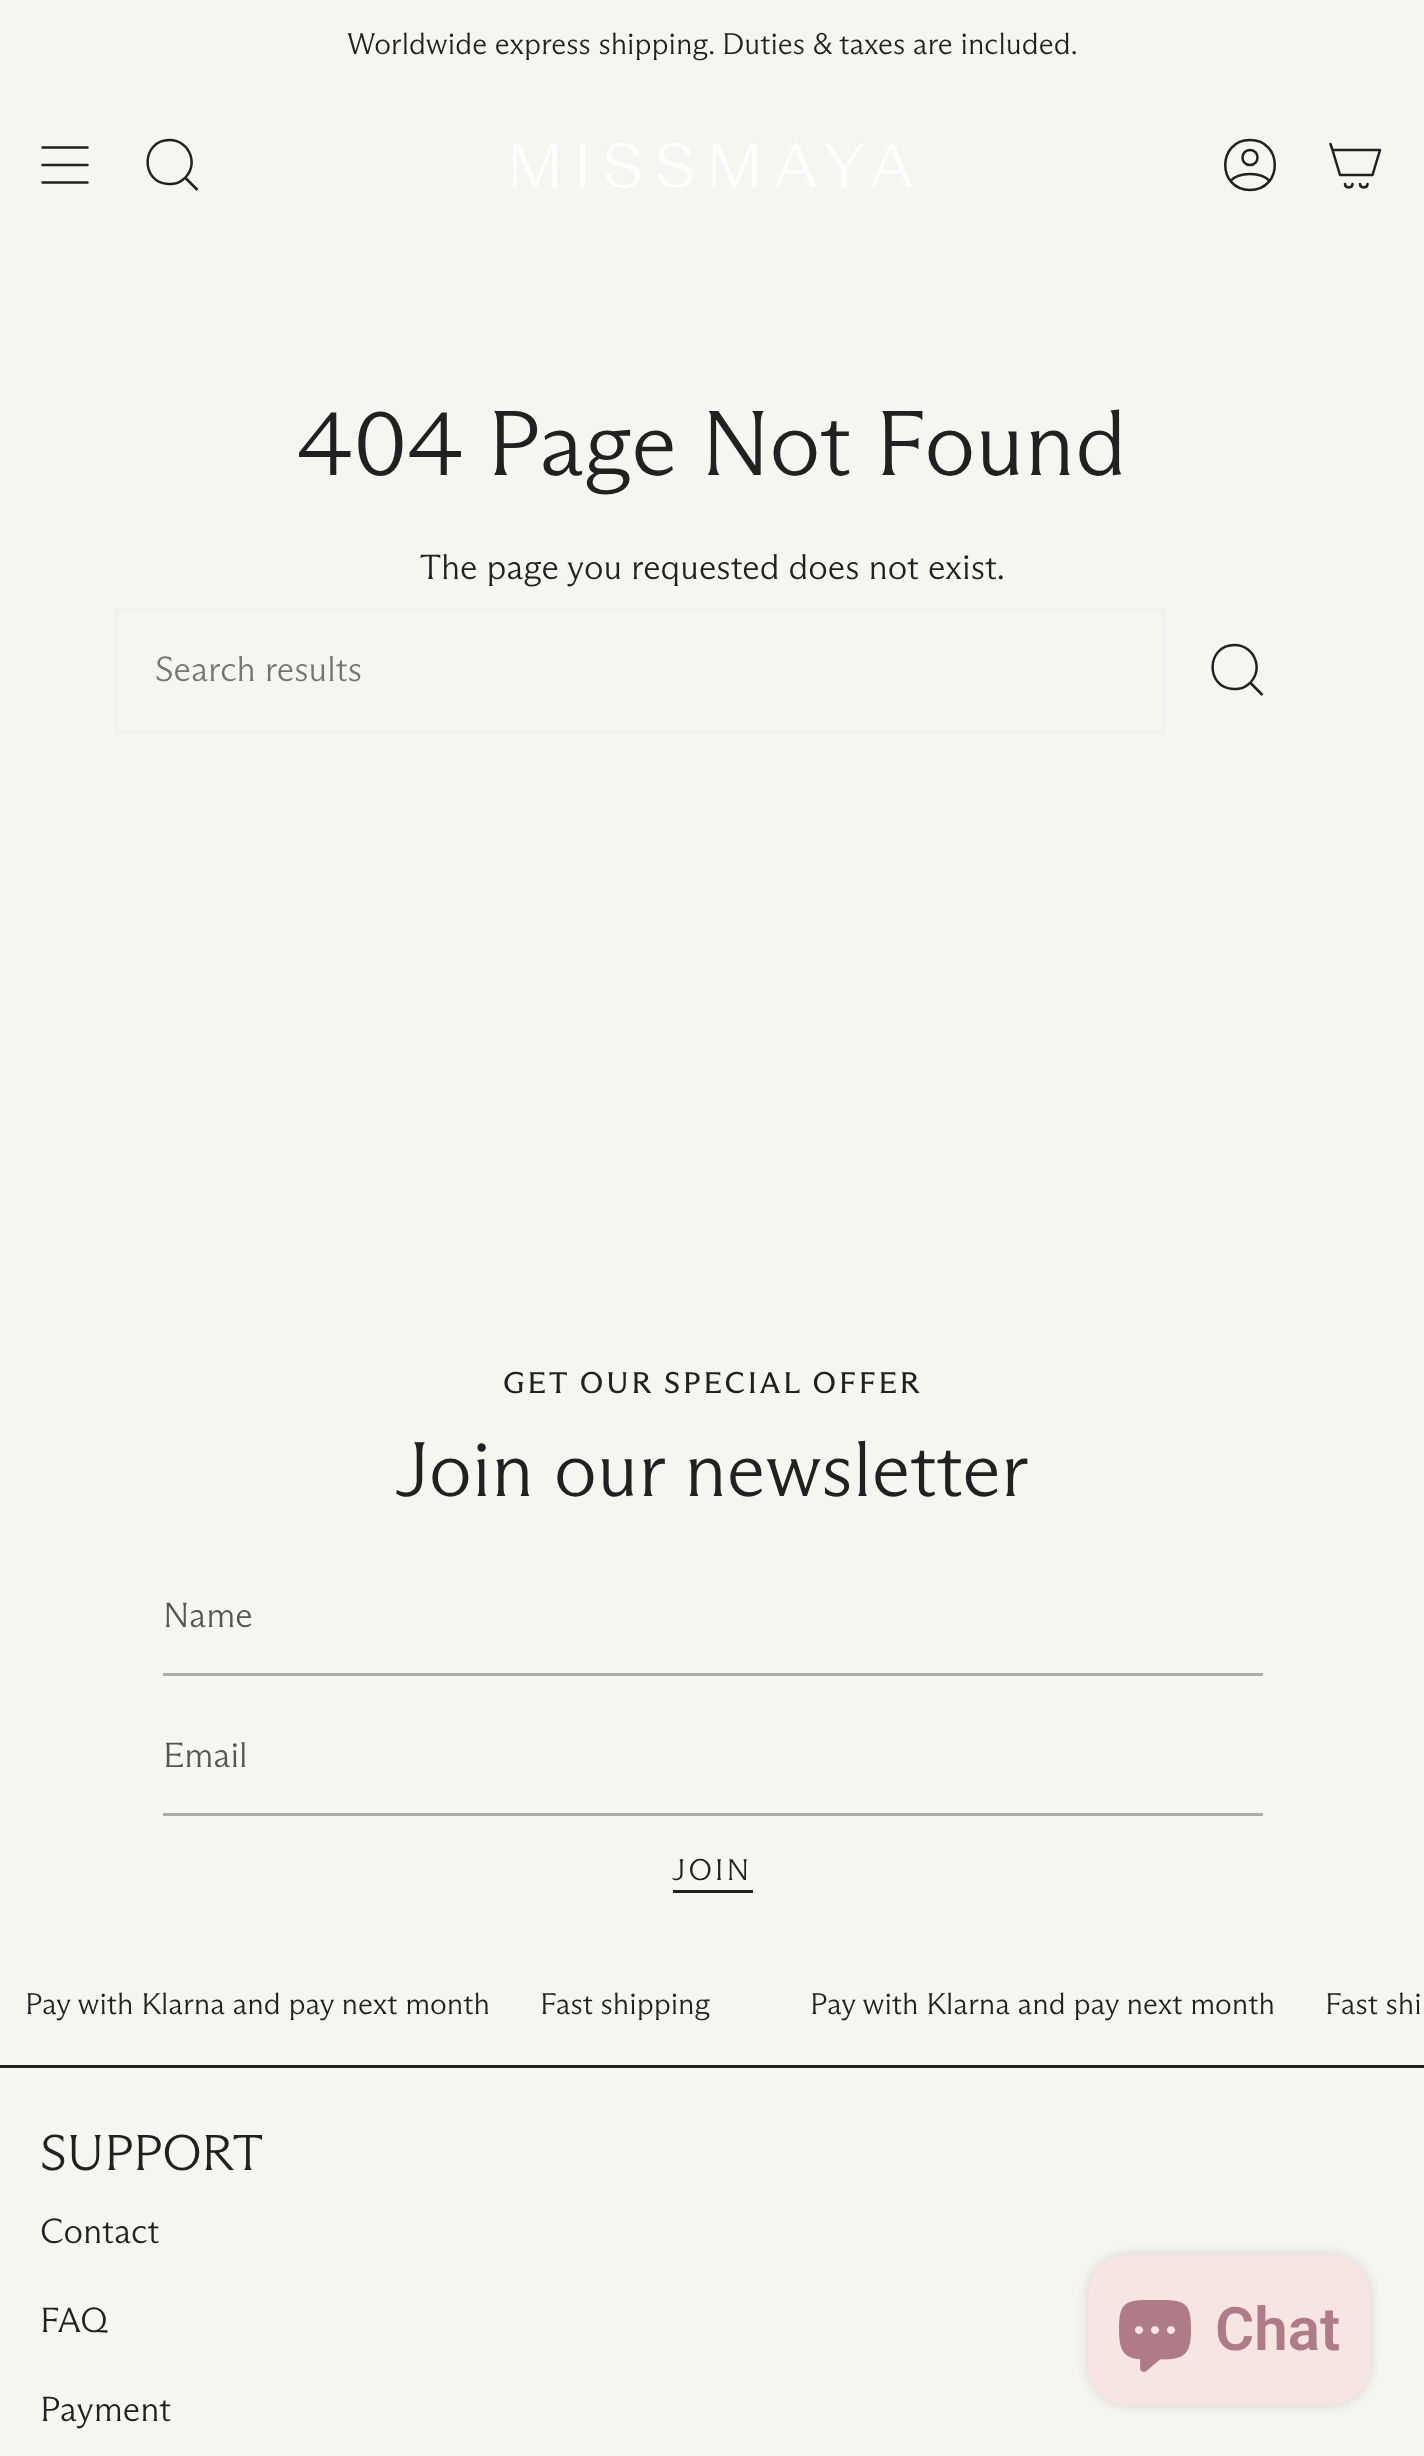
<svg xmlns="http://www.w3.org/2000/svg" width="1424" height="2456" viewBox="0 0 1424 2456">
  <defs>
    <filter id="blur1" x="-50%" y="-200%" width="200%" height="500%"><feGaussianBlur stdDeviation="6"/></filter>
  </defs>
  <rect width="100%" height="100%" fill="#f7f5ef"/>
  <text x="347" y="54" font-family="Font" font-size="30" font-weight="300" fill="#212121">Worldwide express shipping. Duties &amp; taxes are included.</text>
  <path d="M42.5 147.5H87.5M42.5 165H87.5M42.5 182.5H87.5" fill="none" stroke="#212121" stroke-width="2.5" stroke-linecap="round" stroke-linejoin="round"/>
  <path d="M169.5 140C190.5 140 200 167 182.5 180C178.5 183 173.5 184.5 168.5 184C140 183 141 140 169.5 140ZM185.5 178L197.5 190" fill="none" stroke="#212121" stroke-width="2.5"/>
  <image x="513" y="143" width="399" height="45" href="img1.png"/>
  <path d="M1250 140C1217 140 1217 190 1250 190C1283 190 1283 140 1250 140ZM1230.5 181C1238 171.5 1262 171.5 1269.5 181M1250 165C1260 165 1260 150 1250 150C1240 150 1240 165 1250 165Z" fill="none" stroke="#212121" stroke-width="2.5" stroke-linecap="round" stroke-linejoin="round"/>
  <path d="M1332.5 150H1380L1372.5 175H1340ZM1332.5 150L1330.5 144M1352.5 184C1352.5 188.5 1345 188.5 1345 184M1367.5 184C1367.5 188.5 1360 188.5 1360 184" fill="none" stroke="#212121" stroke-width="2.5" stroke-linecap="round" stroke-linejoin="round"/>
  <text x="297" y="475" font-family="Font" font-size="92" font-weight="300" fill="#212121">404 Page Not Found</text>
  <text x="420" y="579" font-family="Font" font-size="35" font-weight="300" fill="#212121">The page you requested does not exist.</text>
  <rect x="116.5" y="609.5" width="1047" height="122" fill="none" stroke="#f0f0f0" stroke-width="3"/>
  <text x="155" y="681" font-family="Font" font-size="35" font-weight="300" fill="#757575">Search results</text>
  <path d="M1234.5 645C1255.5 645 1265 672 1247.5 685C1243.5 688 1238.5 689.5 1233.5 689C1205 688 1206 645 1234.5 645ZM1250.5 683L1262.5 695" fill="none" stroke="#212121" stroke-width="2.5"/>
  <text x="503" y="1393" font-family="Font" font-size="30" letter-spacing="3" fill="#212121">GET OUR SPECIAL OFFER</text>
  <text x="395" y="1496" font-family="Font" font-size="77.5" font-weight="300" fill="#212121">Join our newsletter</text>
  <rect x="163" y="1673" width="1100" height="3" fill="#acaba7"/>
  <text x="163" y="1627" font-family="Font" font-size="35" font-weight="300" fill="#575655">Name</text>
  <rect x="163" y="1813" width="1100" height="3" fill="#acaba7"/>
  <text x="163" y="1767" font-family="Font" font-size="35" font-weight="300" fill="#575655">Email</text>
  <text x="672" y="1880" font-family="Font" font-size="30" font-weight="300" letter-spacing="3" fill="#212121">JOIN</text>
  <rect x="673" y="1890" width="80" height="3" fill="#212121"/>
  <text x="25" y="2014" font-family="Font" font-size="30" font-weight="300" fill="#212121">Pay with Klarna and pay next month</text>
  <text x="540" y="2014" font-family="Font" font-size="30" font-weight="300" fill="#212121">Fast shipping</text>
  <text x="810" y="2014" font-family="Font" font-size="30" font-weight="300" fill="#212121">Pay with Klarna and pay next month</text>
  <text x="1325" y="2014" font-family="Font" font-size="30" font-weight="300" fill="#212121">Fast shi</text>
  <rect x="0" y="2065" width="1424" height="3" fill="#212121"/>
  <text x="40" y="2170" font-family="Font" font-size="50.5" font-weight="300" fill="#212121">SUPPORT</text>
  <text x="40" y="2243" font-family="Font" font-size="35" font-weight="300" fill="#212121">Contact</text>
  <text x="40" y="2332" font-family="Font" font-size="35" font-weight="300" fill="#212121">FAQ</text>
  <text x="40" y="2421" font-family="Font" font-size="35" font-weight="300" fill="#212121">Payment</text>
  <rect x="1088" y="2255" width="282" height="150" rx="40" fill="#000000" fill-opacity="0.15" filter="url(#blur1)"/>
  <rect x="1088" y="2255" width="282" height="150" rx="40" fill="#f6e5e0"/>
  <image x="1119" y="2300" width="72" height="72" href="img2.png"/>
  <text x="1215" y="2350" font-family="Roboto" font-size="60" font-weight="600" fill="#af7b88">Chat</text>
</svg>
